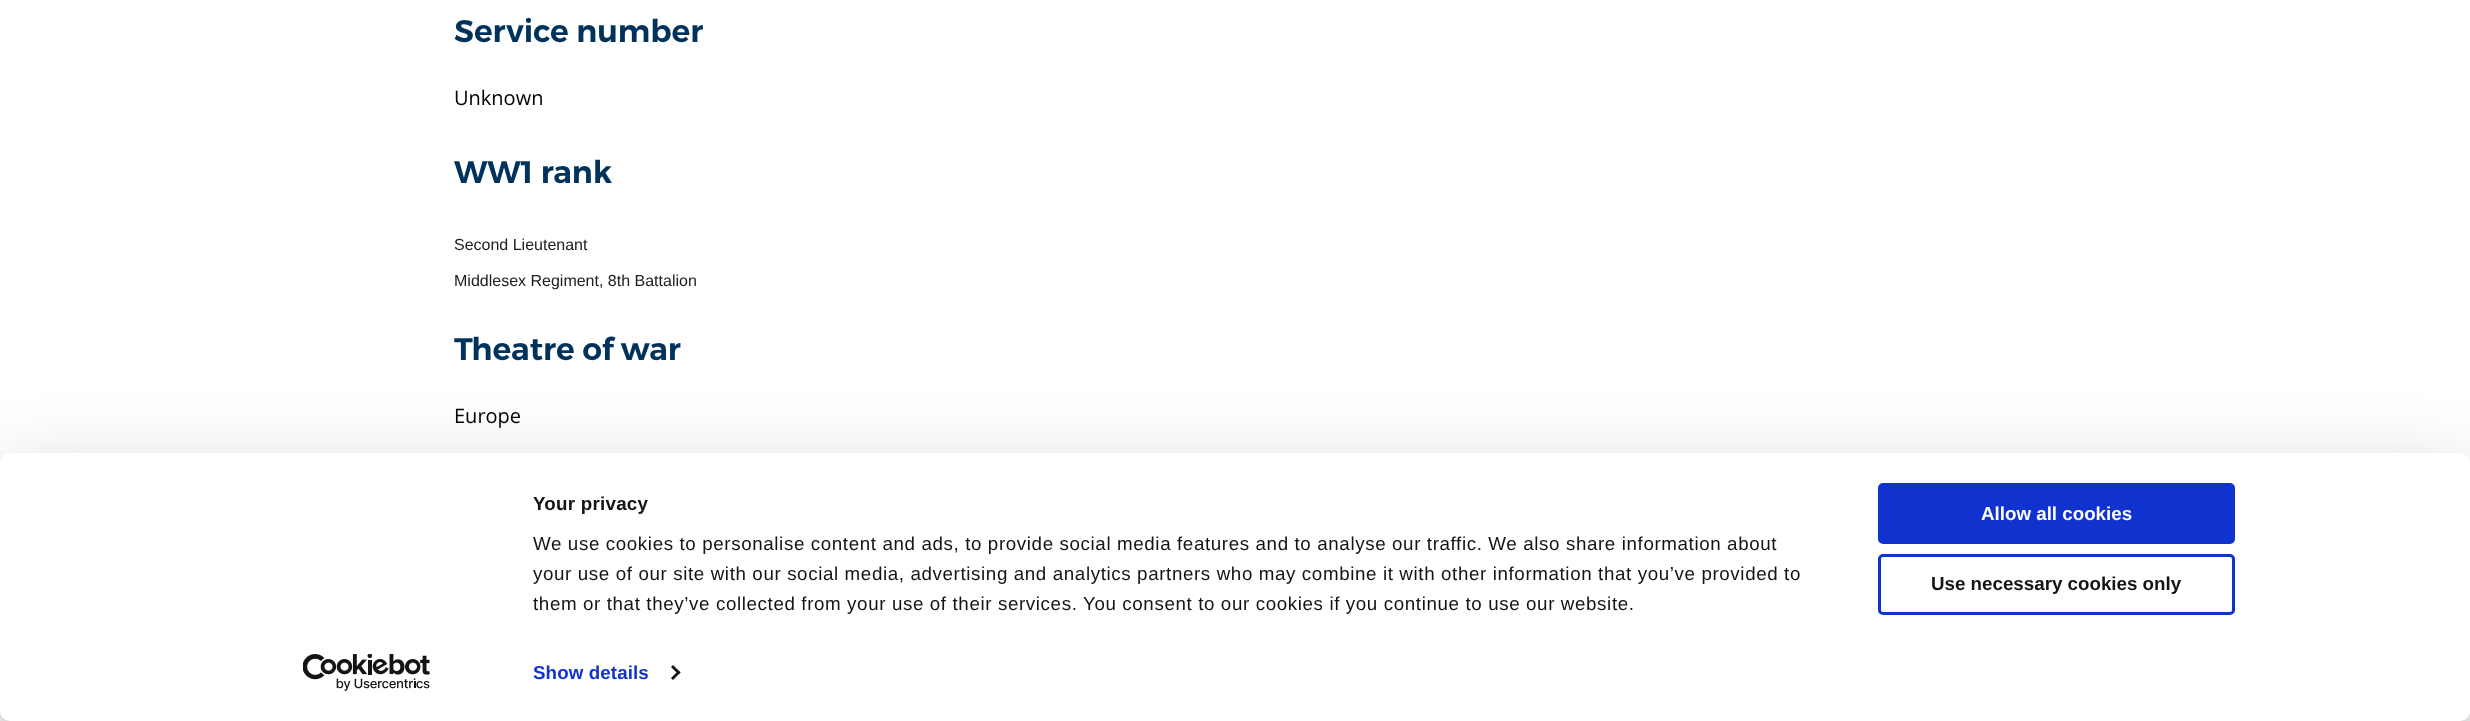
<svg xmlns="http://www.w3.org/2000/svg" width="2470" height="721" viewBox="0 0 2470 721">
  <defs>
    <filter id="blur1" x="-50%" y="-200%" width="200%" height="500%"><feGaussianBlur stdDeviation="44"/></filter>
  </defs>
  <rect width="100%" height="100%" fill="#ffffff"/>
  <text x="454" y="42" font-family="Montserrat" font-size="31.25" font-weight="600" fill="#00325b">Service number</text>
  <text x="454" y="105" font-family="Open Sans" font-size="20" fill="#000000">Unknown</text>
  <text x="454" y="183" font-family="Montserrat" font-size="31.25" font-weight="600" fill="#00325b">WW1 rank</text>
  <text x="454" y="250" font-family="Liberation Sans" font-size="16" fill="#202020">Second Lieutenant</text>
  <text x="454" y="286" font-family="Liberation Sans" font-size="16" fill="#202020">Middlesex Regiment, 8th Battalion</text>
  <text x="454" y="360" font-family="Montserrat" font-size="31.25" font-weight="600" fill="#00325b">Theatre of war</text>
  <text x="454" y="423" font-family="Open Sans" font-size="20" fill="#000000">Europe</text>
  <rect x="0" y="490" width="2470" height="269" rx="10" fill="#000000" fill-opacity="0.3" filter="url(#blur1)"/>
  <rect x="0" y="453" width="2470" height="268" rx="10" fill="#ffffff"/>
  <text x="533" y="510" font-family="Liberation Sans" font-size="18.75" font-weight="bold" letter-spacing="0.25" fill="#141414">Your privacy</text>
  <text x="533" y="550" font-family="Liberation Sans" font-size="18.75" letter-spacing="0.62" fill="#141414">We use cookies to personalise content and ads, to provide social media features and to analyse our traffic. We also share information about</text>
  <text x="533" y="580" font-family="Liberation Sans" font-size="18.75" letter-spacing="0.62" fill="#141414">your use of our site with our social media, advertising and analytics partners who may combine it with other information that you’ve provided to</text>
  <text x="533" y="610" font-family="Liberation Sans" font-size="18.75" letter-spacing="0.62" fill="#141414">them or that they’ve collected from your use of their services. You consent to our cookies if you continue to use our website.</text>
  <text x="533" y="679" font-family="Liberation Sans" font-size="18.75" font-weight="bold" letter-spacing="0.1" fill="#1032cf">Show details</text>
  <path d="M673 665L680.5 672.5L678.5 674.5L671 667Z" fill="#141414"/>
  <path d="M678.5 670.5L680.5 672.5L673 680L671 678Z" fill="#141414"/>
  <rect x="1879.5" y="484.5" width="354" height="58" rx="3.5" fill="#1032cf" stroke="#1032cf" stroke-width="3"/>
  <text x="1981" y="520" font-family="Liberation Sans" font-size="18.75" font-weight="bold" fill="#ffffff">Allow all cookies</text>
  <rect x="1879.5" y="555.5" width="354" height="58" rx="3.5" fill="none" stroke="#1032cf" stroke-width="3"/>
  <text x="1931" y="590" font-family="Liberation Sans" font-size="18.75" font-weight="bold" fill="#141414">Use necessary cookies only</text>
  <image x="303" y="654" width="127" height="37" href="img1.png"/>
</svg>
